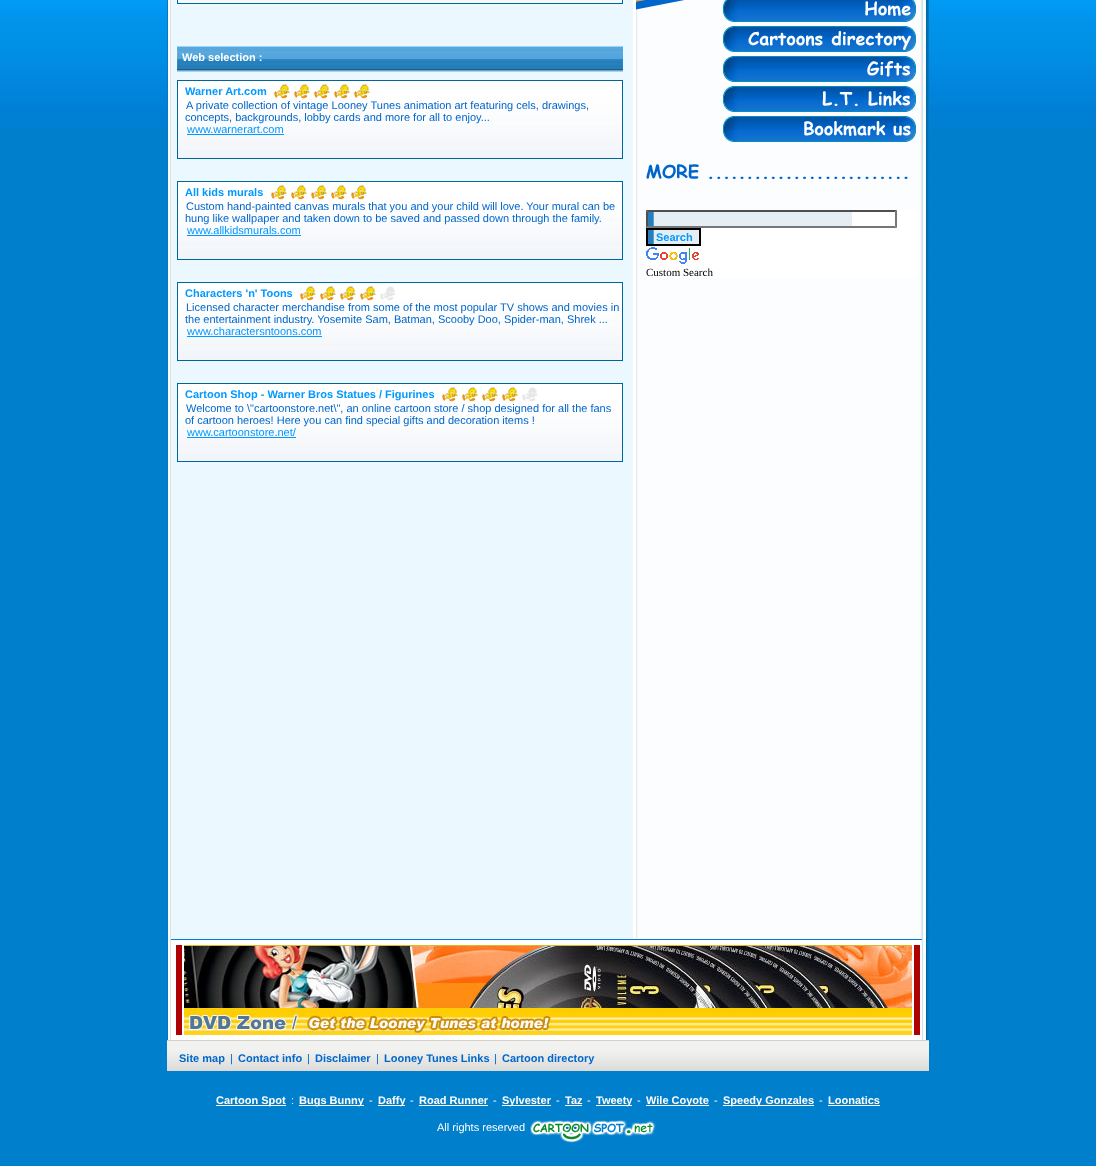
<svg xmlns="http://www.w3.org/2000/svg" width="1096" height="1166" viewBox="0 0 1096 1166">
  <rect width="100%" height="100%" fill="#007fcc"/>
  <image x="0" y="0" width="1096" height="128" href="img1.png"/>
  <image x="167" y="0" width="466" height="939" href="img2.png"/>
  <rect x="177.5" y="-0.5" width="445" height="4" fill="#f8f9fb" stroke="#006699"/>
  <image x="177" y="46" width="446" height="26" href="img3.png"/>
  <text x="182" y="61" font-family="Liberation Sans" font-size="11" font-weight="bold" fill="#ffffff">Web selection :</text>
  <image x="178" y="81" width="444" height="77" href="img4.png"/>
  <rect x="177.5" y="80.5" width="445" height="78" fill="none" stroke="#006699"/>
  <text x="185" y="95" font-family="Liberation Sans" font-size="11" font-weight="bold" fill="#0099ff">Warner Art.com</text>
  <image x="274" y="84" width="96" height="15" href="img5.png"/>
  <text x="186" y="109" font-family="Liberation Sans" font-size="11" fill="#0066cc">A private collection of vintage Looney Tunes animation art featuring cels, drawings,</text>
  <text x="185" y="121" font-family="Liberation Sans" font-size="11" fill="#0066cc">concepts, backgrounds, lobby cards and more for all to enjoy...</text>
  <text x="187" y="133" font-family="Liberation Sans" font-size="11" fill="#0099ff">www.warnerart.com</text>
  <rect x="187" y="134" width="97" height="1" fill="#0099ff"/>
  <image x="178" y="182" width="444" height="77" href="img4.png"/>
  <rect x="177.5" y="181.5" width="445" height="78" fill="none" stroke="#006699"/>
  <text x="185" y="196" font-family="Liberation Sans" font-size="11" font-weight="bold" fill="#0099ff">All kids murals</text>
  <image x="271" y="185" width="96" height="15" href="img5.png"/>
  <text x="186" y="210" font-family="Liberation Sans" font-size="11" fill="#0066cc">Custom hand-painted canvas murals that you and your child will love. Your mural can be</text>
  <text x="185" y="222" font-family="Liberation Sans" font-size="11" fill="#0066cc">hung like wallpaper and taken down to be saved and passed down through the family.</text>
  <text x="187" y="234" font-family="Liberation Sans" font-size="11" fill="#0099ff">www.allkidsmurals.com</text>
  <rect x="187" y="235" width="114" height="1" fill="#0099ff"/>
  <image x="178" y="283" width="444" height="77" href="img4.png"/>
  <rect x="177.5" y="282.5" width="445" height="78" fill="none" stroke="#006699"/>
  <text x="185" y="297" font-family="Liberation Sans" font-size="11" font-weight="bold" fill="#0099ff">Characters 'n' Toons</text>
  <image x="300" y="286" width="96" height="15" href="img6.png"/>
  <text x="186" y="311" font-family="Liberation Sans" font-size="11" fill="#0066cc">Licensed character merchandise from some of the most popular TV shows and movies in</text>
  <text x="185" y="323" font-family="Liberation Sans" font-size="11" fill="#0066cc">the entertainment industry. Yosemite Sam, Batman, Scooby Doo, Spider-man, Shrek ...</text>
  <text x="187" y="335" font-family="Liberation Sans" font-size="11" fill="#0099ff">www.charactersntoons.com</text>
  <rect x="187" y="336" width="135" height="1" fill="#0099ff"/>
  <image x="178" y="384" width="444" height="77" href="img4.png"/>
  <rect x="177.5" y="383.5" width="445" height="78" fill="none" stroke="#006699"/>
  <text x="185" y="398" font-family="Liberation Sans" font-size="11" font-weight="bold" fill="#0099ff">Cartoon Shop - Warner Bros Statues / Figurines</text>
  <image x="442" y="387" width="96" height="15" href="img6.png"/>
  <text x="186" y="412" font-family="Liberation Sans" font-size="11" fill="#0066cc">Welcome to \"cartoonstore.net\", an online cartoon store / shop designed for all the fans</text>
  <text x="185" y="424" font-family="Liberation Sans" font-size="11" fill="#0066cc">of cartoon heroes! Here you can find special gifts and decoration items !</text>
  <text x="187" y="436" font-family="Liberation Sans" font-size="11" fill="#0099ff">www.cartoonstore.net/</text>
  <rect x="187" y="437" width="109" height="1" fill="#0099ff"/>
  <image x="633" y="0" width="296" height="939" href="img7.png"/>
  <image x="636" y="0" width="48" height="10" href="img8.png"/>
  <image x="723" y="0" width="193" height="22" href="img9.png"/>
  <image x="723" y="26" width="193" height="26" href="img10.png"/>
  <image x="723" y="56" width="193" height="26" href="img11.png"/>
  <image x="723" y="86" width="193" height="26" href="img12.png"/>
  <image x="723" y="116" width="193" height="26" href="img13.png"/>
  <image x="646" y="164" width="262" height="15" href="img14.png"/>
  <rect x="646" y="210" width="270" height="68" fill="#ffffff"/>
  <image x="648" y="212" width="204" height="14" href="img15.png"/>
  <path d="M646 210H897L895 212H648Z" fill="#4f4f4f"/>
  <path d="M897 210V228L895 226V212Z" fill="#767676"/>
  <path d="M897 228H646L648 226H895Z" fill="#767676"/>
  <path d="M646 228V210L648 212V226Z" fill="#4f4f4f"/>
  <image x="648" y="230" width="51" height="14" href="img16.png"/>
  <rect x="647" y="229" width="53" height="16" fill="none" stroke="#000000" stroke-width="2"/>
  <text x="656" y="241" font-family="Liberation Sans" font-size="11" font-weight="bold" fill="#0099ff">Search</text>
  <image x="646" y="247" width="53" height="17" href="img17.png"/>
  <text x="646" y="276" font-family="Liberation Serif" font-size="11" fill="#000000">Custom Search</text>
  <image x="167" y="939" width="762" height="6" href="img18.png"/>
  <image x="167" y="945" width="762" height="95" href="img19.png"/>
  <image x="176" y="945" width="744" height="90" href="img20.png"/>
  <image x="167" y="1040" width="762" height="31" href="img21.png"/>
  <text x="179" y="1062" font-family="Liberation Sans" font-size="11" font-weight="bold" fill="#0066cc">Site map</text>
  <text x="230" y="1062" font-family="Liberation Sans" font-size="11" fill="#0066cc">|</text>
  <text x="238" y="1062" font-family="Liberation Sans" font-size="11" font-weight="bold" fill="#0066cc">Contact info</text>
  <text x="307" y="1062" font-family="Liberation Sans" font-size="11" fill="#0066cc">|</text>
  <text x="315" y="1062" font-family="Liberation Sans" font-size="11" font-weight="bold" fill="#0066cc">Disclaimer</text>
  <text x="376" y="1062" font-family="Liberation Sans" font-size="11" fill="#0066cc">|</text>
  <text x="384" y="1062" font-family="Liberation Sans" font-size="11" font-weight="bold" fill="#0066cc">Looney Tunes Links</text>
  <text x="494" y="1062" font-family="Liberation Sans" font-size="11" fill="#0066cc">|</text>
  <text x="502" y="1062" font-family="Liberation Sans" font-size="11" font-weight="bold" fill="#0066cc">Cartoon directory</text>
  <rect x="216" y="1105" width="70" height="1" fill="#ffffff"/>
  <text x="216" y="1104" font-family="Liberation Sans" font-size="11" font-weight="bold" fill="#ffffff">Cartoon Spot</text>
  <text x="291" y="1104" font-family="Liberation Sans" font-size="11" fill="#ffffff">:</text>
  <rect x="299" y="1105" width="65" height="1" fill="#ffffff"/>
  <text x="299" y="1104" font-family="Liberation Sans" font-size="11" font-weight="bold" fill="#ffffff">Bugs Bunny</text>
  <text x="369" y="1104" font-family="Liberation Sans" font-size="11" fill="#ffffff">-</text>
  <rect x="378" y="1105" width="27" height="1" fill="#ffffff"/>
  <text x="378" y="1104" font-family="Liberation Sans" font-size="11" font-weight="bold" fill="#ffffff">Daffy</text>
  <text x="410" y="1104" font-family="Liberation Sans" font-size="11" fill="#ffffff">-</text>
  <text x="419" y="1104" font-family="Liberation Sans" font-size="11" font-weight="bold" fill="#ffffff">Road Runner</text>
  <rect x="419" y="1105" width="69" height="1" fill="#ffffff"/>
  <text x="493" y="1104" font-family="Liberation Sans" font-size="11" fill="#ffffff">-</text>
  <rect x="502" y="1105" width="49" height="1" fill="#ffffff"/>
  <text x="502" y="1104" font-family="Liberation Sans" font-size="11" font-weight="bold" fill="#ffffff">Sylvester</text>
  <text x="556" y="1104" font-family="Liberation Sans" font-size="11" fill="#ffffff">-</text>
  <text x="565" y="1104" font-family="Liberation Sans" font-size="11" font-weight="bold" fill="#ffffff">Taz</text>
  <rect x="565" y="1105" width="17" height="1" fill="#ffffff"/>
  <text x="587" y="1104" font-family="Liberation Sans" font-size="11" fill="#ffffff">-</text>
  <rect x="596" y="1105" width="36" height="1" fill="#ffffff"/>
  <text x="596" y="1104" font-family="Liberation Sans" font-size="11" font-weight="bold" fill="#ffffff">Tweety</text>
  <text x="637" y="1104" font-family="Liberation Sans" font-size="11" fill="#ffffff">-</text>
  <rect x="646" y="1105" width="63" height="1" fill="#ffffff"/>
  <text x="646" y="1104" font-family="Liberation Sans" font-size="11" font-weight="bold" fill="#ffffff">Wile Coyote</text>
  <text x="714" y="1104" font-family="Liberation Sans" font-size="11" fill="#ffffff">-</text>
  <rect x="723" y="1105" width="91" height="1" fill="#ffffff"/>
  <text x="723" y="1104" font-family="Liberation Sans" font-size="11" font-weight="bold" fill="#ffffff">Speedy Gonzales</text>
  <text x="819" y="1104" font-family="Liberation Sans" font-size="11" fill="#ffffff">-</text>
  <text x="828" y="1104" font-family="Liberation Sans" font-size="11" font-weight="bold" fill="#ffffff">Loonatics</text>
  <rect x="828" y="1105" width="52" height="1" fill="#ffffff"/>
  <text x="437" y="1131" font-family="Liberation Sans" font-size="11" fill="#ffffff">All rights reserved</text>
  <image x="530" y="1120" width="126" height="23" href="img22.png"/>
</svg>
